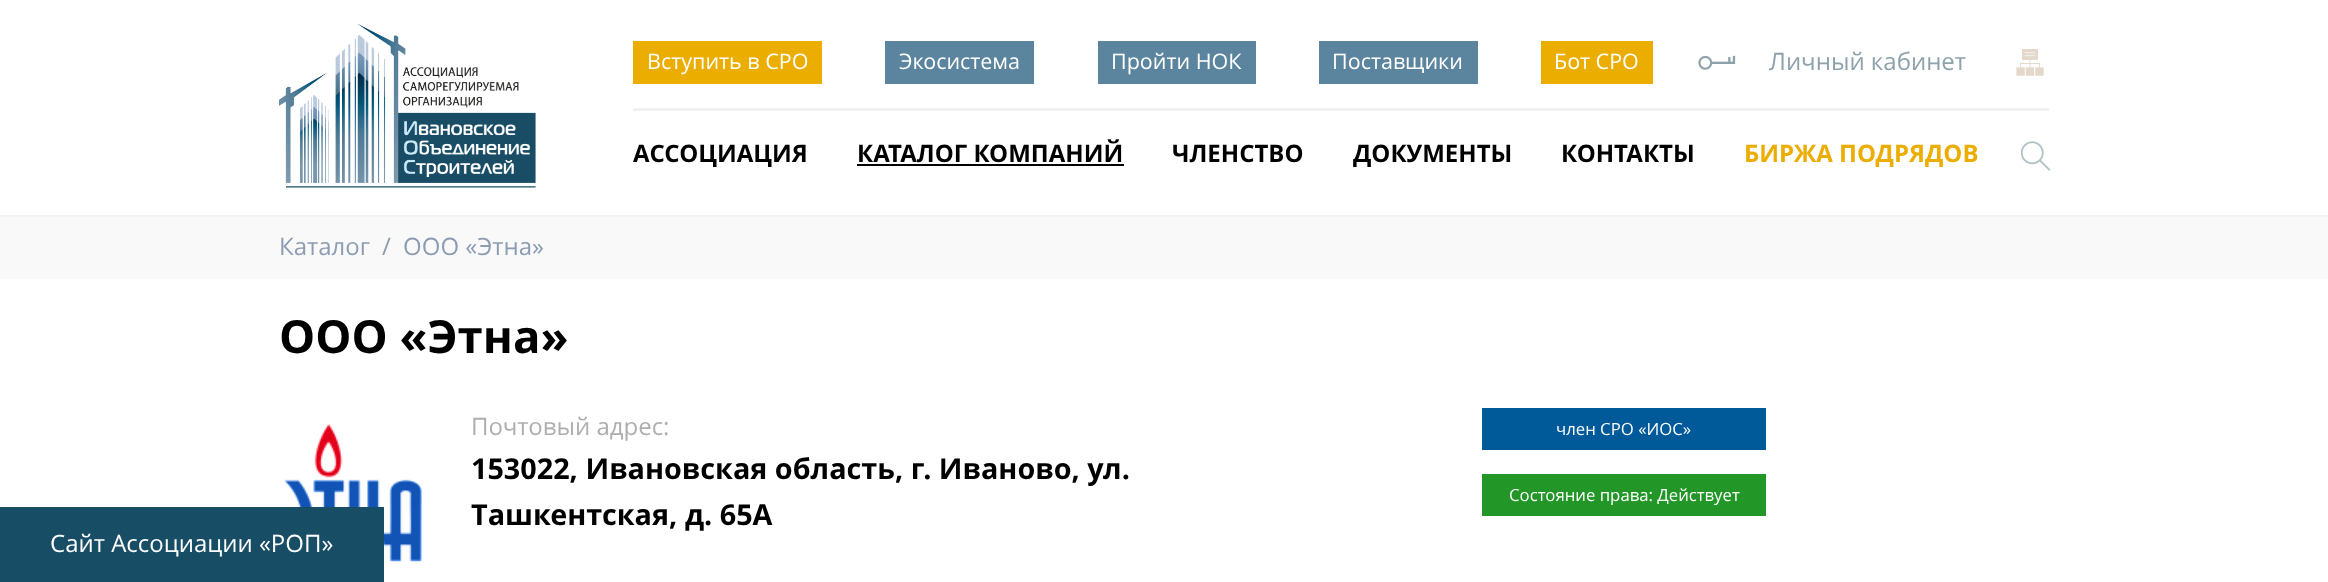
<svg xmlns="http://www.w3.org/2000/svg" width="2328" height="582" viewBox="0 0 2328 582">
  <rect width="100%" height="100%" fill="#ffffff"/>
  <rect x="0" y="215" width="2328" height="2" fill="#f3f3f3"/>
  <image x="279" y="24" width="257" height="164" href="img1.png"/>
  <rect x="633" y="108" width="1416" height="3" fill="#f2f0f0"/>
  <rect x="633" y="41" width="189" height="43" fill="#ebad00"/>
  <text x="647" y="69" font-family="Open Sans" font-size="21.5" fill="#ffffff">Вступить в СРО</text>
  <rect x="885" y="41" width="149" height="43" fill="#5b859e"/>
  <text x="899" y="69" font-family="Open Sans" font-size="21.5" fill="#ffffff">Экосистема</text>
  <rect x="1098" y="41" width="158" height="43" fill="#5b859e"/>
  <text x="1111" y="69" font-family="Open Sans" font-size="21.5" fill="#ffffff">Пройти НОК</text>
  <rect x="1319" y="41" width="159" height="43" fill="#5b859e"/>
  <text x="1332" y="69" font-family="Open Sans" font-size="21.5" fill="#ffffff">Поставщики</text>
  <rect x="1541" y="41" width="112" height="43" fill="#ebad00"/>
  <text x="1554" y="69" font-family="Open Sans" font-size="21.5" fill="#ffffff">Бот СРО</text>
  <image x="1698" y="55" width="38" height="15" href="img2.png"/>
  <text x="1769" y="70" font-family="Open Sans" font-size="24" fill="#8da2ab">Личный кабинет</text>
  <image x="2016" y="49" width="28" height="27" href="img3.png"/>
  <text x="633" y="162" font-family="Open Sans" font-size="24" font-weight="bold" fill="#000000">АССОЦИАЦИЯ</text>
  <text x="857" y="162" font-family="Open Sans" font-size="24" font-weight="bold" fill="#000000">КАТАЛОГ КОМПАНИЙ</text>
  <rect x="857" y="164" width="267" height="2" fill="#000000"/>
  <text x="1172" y="162" font-family="Open Sans" font-size="24" font-weight="bold" fill="#000000">ЧЛЕНСТВО</text>
  <text x="1353" y="162" font-family="Open Sans" font-size="24" font-weight="bold" fill="#000000">ДОКУМЕНТЫ</text>
  <text x="1561" y="162" font-family="Open Sans" font-size="24" font-weight="bold" fill="#000000">КОНТАКТЫ</text>
  <text x="1744" y="162" font-family="Open Sans" font-size="24" font-weight="bold" fill="#ebad00">БИРЖА ПОДРЯДОВ</text>
  <image x="2021" y="141" width="30" height="30" href="img4.png"/>
  <rect x="0" y="217" width="2328" height="62" fill="#f9f9f9"/>
  <text x="279" y="255" font-family="Open Sans" font-size="24" fill="#8c9cb2">Каталог</text>
  <text x="382" y="255" font-family="Open Sans" font-size="24" fill="#8c9cb2">/</text>
  <text x="403" y="255" font-family="Open Sans" font-size="24" fill="#8c9cb2">ООО «Этна»</text>
  <text x="279" y="353" font-family="Open Sans" font-size="45.5" font-weight="bold" fill="#000000">ООО «Этна»</text>
  <image x="284" y="424" width="138" height="138" href="img5.png"/>
  <text x="471" y="435" font-family="Open Sans" font-size="24" fill="#aeaeae">Почтовый адрес:</text>
  <text x="471" y="479" font-family="Open Sans" font-size="28.8" font-weight="bold" fill="#000000">153022, Ивановская область, г. Иваново, ул.</text>
  <text x="471" y="525" font-family="Open Sans" font-size="28.8" font-weight="bold" fill="#000000">Ташкентская, д. 65А</text>
  <rect x="1482" y="408" width="284" height="42" fill="#005999"/>
  <text x="1556" y="435" font-family="Open Sans" font-size="16.75" fill="#ffffff">член СРО «ИОС»</text>
  <rect x="1482" y="474" width="284" height="42" fill="#229626"/>
  <text x="1509" y="501" font-family="Open Sans" font-size="16.75" fill="#ffffff">Состояние права: Действует</text>
  <rect x="0" y="507" width="384" height="75" fill="#184d66"/>
  <text x="50" y="552" font-family="Open Sans" font-size="24" fill="#ffffff">Сайт Ассоциации «РОП»</text>
</svg>
